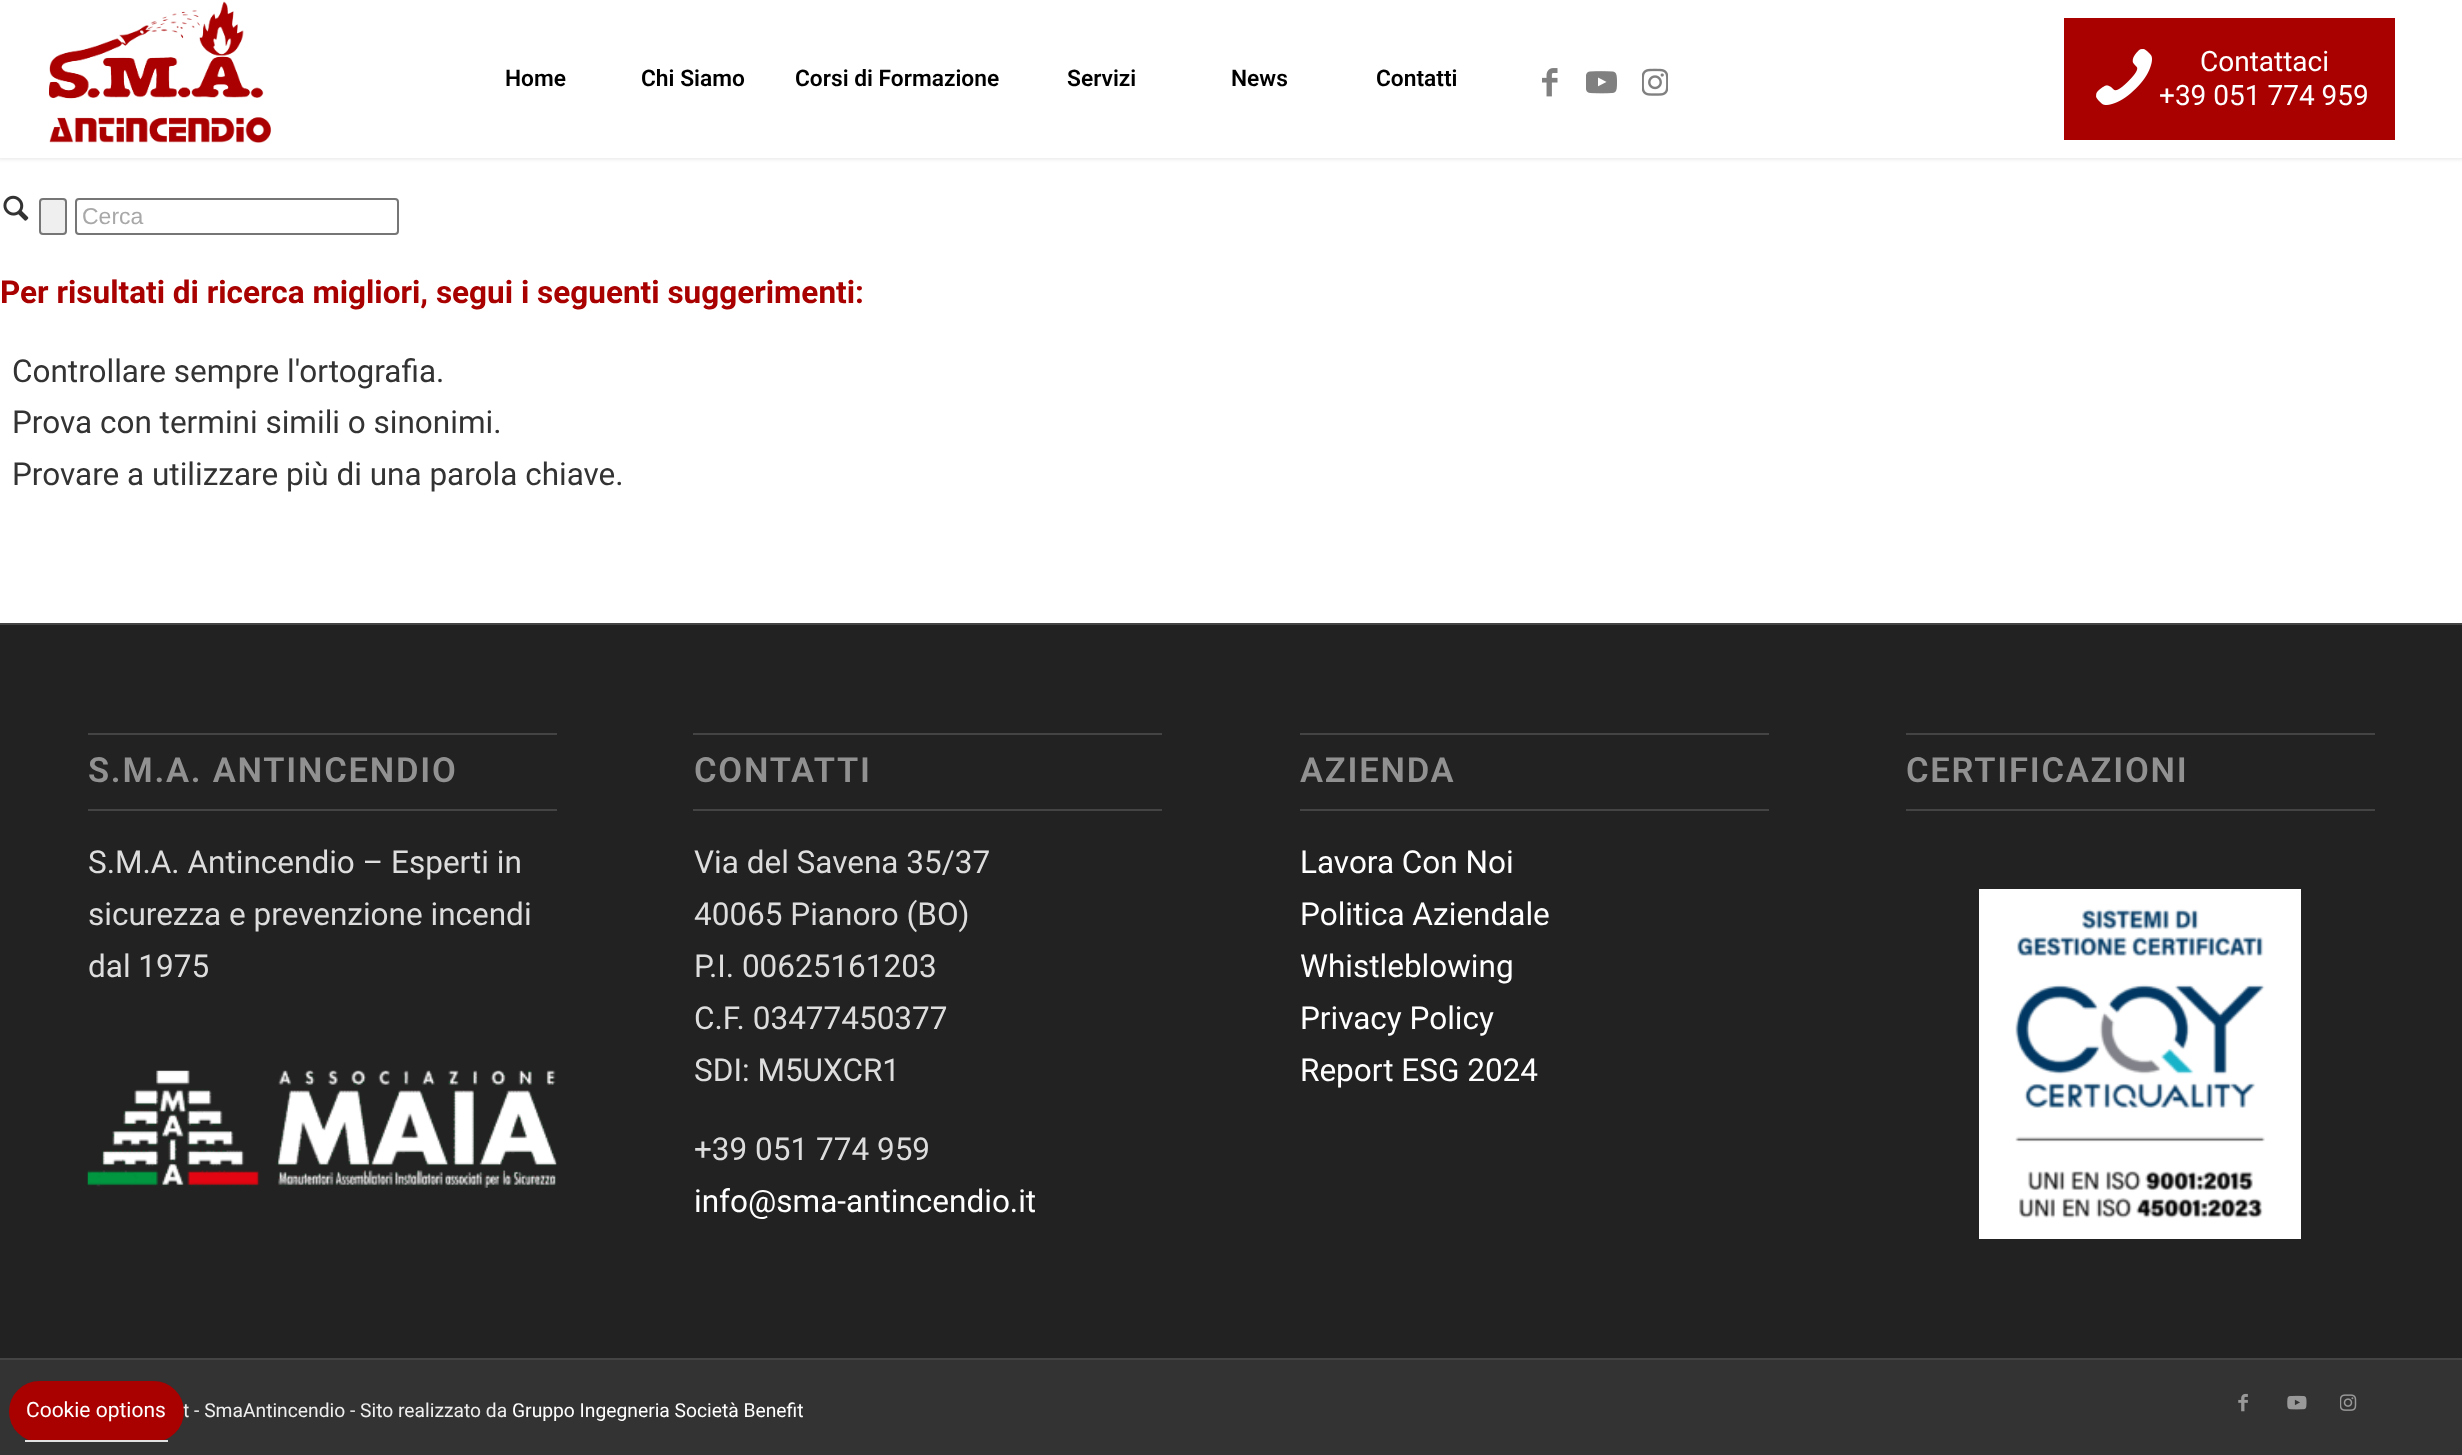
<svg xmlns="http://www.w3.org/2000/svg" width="2462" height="1455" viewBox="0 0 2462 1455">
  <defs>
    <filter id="blur1" x="-50%" y="-200%" width="200%" height="500%"><feGaussianBlur stdDeviation="2"/></filter>
  </defs>
  <rect width="100%" height="100%" fill="#ffffff"/>
  <rect x="-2" y="-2" width="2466" height="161" fill="#000000" fill-opacity="0.1" filter="url(#blur1)"/>
  <rect x="0" y="0" width="2462" height="158" fill="#ffffff"/>
  <image x="49" y="1" width="223" height="142" href="img1.png"/>
  <rect x="2064" y="18" width="331" height="122" fill="#a90000"/>
  <image x="2096" y="49" width="56" height="56" href="img2.png"/>
  <text x="2200" y="71" font-family="Roboto" font-size="28" fill="#ffffff">Contattaci</text>
  <text x="2159" y="105" font-family="Roboto" font-size="28" fill="#ffffff">+39 051 774 959</text>
  <rect x="0" y="1360" width="2462" height="95" fill="#333333"/>
  <text x="183" y="1417" font-family="Roboto" font-size="19.25" fill="#eeeeee">t - SmaAntincendio - Sito realizzato da</text>
  <rect x="9" y="1381" width="175" height="61" rx="30.5" fill="#a90000"/>
  <rect x="25" y="1440" width="143" height="2" fill="#e1e1e1"/>
  <text x="26" y="1417" font-family="Roboto" font-size="21" fill="#ffffff">Cookie options</text>
  <text x="505" y="86" font-family="Roboto" font-size="22.75" font-weight="600" fill="#000000">Home</text>
  <text x="641" y="86" font-family="Roboto" font-size="22.75" font-weight="600" fill="#000000">Chi Siamo</text>
  <text x="795" y="86" font-family="Roboto" font-size="22.75" font-weight="600" fill="#000000">Corsi di Formazione</text>
  <text x="1067" y="86" font-family="Roboto" font-size="22.75" font-weight="600" fill="#000000">Servizi</text>
  <text x="1231" y="86" font-family="Roboto" font-size="22.75" font-weight="600" fill="#000000">News</text>
  <text x="1376" y="86" font-family="Roboto" font-size="22.75" font-weight="600" fill="#000000">Contatti</text>
  <image x="1542" y="68" width="16" height="29" href="img3.png"/>
  <image x="1586" y="71" width="31" height="23" href="img4.png"/>
  <image x="1642" y="68" width="26" height="28" href="img5.png"/>
  <image x="3" y="195" width="26" height="26" href="img6.png"/>
  <rect x="40" y="199" width="26" height="35" rx="3" fill="#efefef" stroke="#767676" stroke-width="2"/>
  <rect x="76" y="199" width="322" height="35" rx="3" fill="none" stroke="#767676" stroke-width="2"/>
  <text x="82" y="224" font-family="Liberation Sans" font-size="23" fill="#a8a8a8">Cerca</text>
  <text x="0" y="303" font-family="Roboto" font-size="31.5" font-weight="bold" fill="#a90000">Per risultati di ricerca migliori, segui i seguenti suggerimenti:</text>
  <text x="12" y="382" font-family="Roboto" font-size="31.5" fill="#333333">Controllare sempre l'ortografia.</text>
  <text x="12" y="433" font-family="Roboto" font-size="31.5" fill="#333333">Prova con termini simili o sinonimi.</text>
  <text x="12" y="485" font-family="Roboto" font-size="31.5" fill="#333333">Provare a utilizzare più di una parola chiave.</text>
  <rect x="0" y="625" width="2462" height="733" fill="#222222"/>
  <rect x="0" y="623" width="2462" height="2" fill="#444444"/>
  <rect x="88" y="733" width="469" height="2" fill="#444444"/>
  <rect x="88" y="809" width="469" height="2" fill="#444444"/>
  <text x="88" y="782" font-family="Roboto" font-size="34.6" font-weight="600" letter-spacing="1.75" fill="#919191">S.M.A. ANTINCENDIO</text>
  <text x="88" y="873" font-family="Roboto" font-size="31.5" fill="#dddddd">S.M.A. Antincendio – Esperti in</text>
  <text x="88" y="925" font-family="Roboto" font-size="31.5" fill="#dddddd">sicurezza e prevenzione incendi</text>
  <text x="88" y="977" font-family="Roboto" font-size="31.5" fill="#dddddd">dal 1975</text>
  <image x="87" y="1070" width="470" height="118" href="img7.png"/>
  <rect x="693" y="733" width="469" height="2" fill="#444444"/>
  <rect x="693" y="809" width="469" height="2" fill="#444444"/>
  <text x="694" y="782" font-family="Roboto" font-size="34.6" font-weight="600" letter-spacing="1.75" fill="#919191">CONTATTI</text>
  <text x="694" y="873" font-family="Roboto" font-size="31.5" fill="#dddddd">Via del Savena 35/37</text>
  <text x="694" y="925" font-family="Roboto" font-size="31.5" fill="#dddddd">40065 Pianoro (BO)</text>
  <text x="694" y="977" font-family="Roboto" font-size="31.5" fill="#dddddd">P.I. 00625161203</text>
  <text x="694" y="1029" font-family="Roboto" font-size="31.5" fill="#dddddd">C.F. 03477450377</text>
  <text x="694" y="1081" font-family="Roboto" font-size="31.5" fill="#dddddd">SDI: M5UXCR1</text>
  <text x="694" y="1160" font-family="Roboto" font-size="31.5" fill="#dddddd">+39 051 774 959</text>
  <text x="694" y="1212" font-family="Roboto" font-size="31.5" fill="#ffffff">info@sma-antincendio.it</text>
  <rect x="1300" y="733" width="469" height="2" fill="#444444"/>
  <rect x="1300" y="809" width="469" height="2" fill="#444444"/>
  <text x="1300" y="782" font-family="Roboto" font-size="34.6" font-weight="600" letter-spacing="1.75" fill="#919191">AZIENDA</text>
  <text x="1300" y="873" font-family="Roboto" font-size="31.5" fill="#ffffff">Lavora Con Noi</text>
  <text x="1300" y="925" font-family="Roboto" font-size="31.5" fill="#ffffff">Politica Aziendale</text>
  <text x="1300" y="977" font-family="Roboto" font-size="31.5" fill="#ffffff">Whistleblowing</text>
  <text x="1300" y="1029" font-family="Roboto" font-size="31.5" fill="#ffffff">Privacy Policy</text>
  <text x="1300" y="1081" font-family="Roboto" font-size="31.5" fill="#ffffff">Report ESG 2024</text>
  <rect x="1906" y="733" width="469" height="2" fill="#444444"/>
  <rect x="1906" y="809" width="469" height="2" fill="#444444"/>
  <text x="1906" y="782" font-family="Roboto" font-size="34.6" font-weight="600" letter-spacing="1.75" fill="#919191">CERTIFICAZIONI</text>
  <rect x="1979" y="889" width="322" height="350" fill="#ffffff"/>
  <image x="2015" y="909" width="250" height="309" href="img8.png"/>
  <rect x="0" y="1358" width="2462" height="2" fill="#444444"/>
  <text x="512" y="1417" font-family="Roboto" font-size="19.25" fill="#ffffff">Gruppo Ingegneria Società Benefit</text>
  <image x="2238" y="1393" width="10" height="19" href="img9.png"/>
  <image x="2287" y="1395" width="20" height="15" href="img10.png"/>
  <image x="2340" y="1394" width="17" height="17" href="img11.png"/>
</svg>
